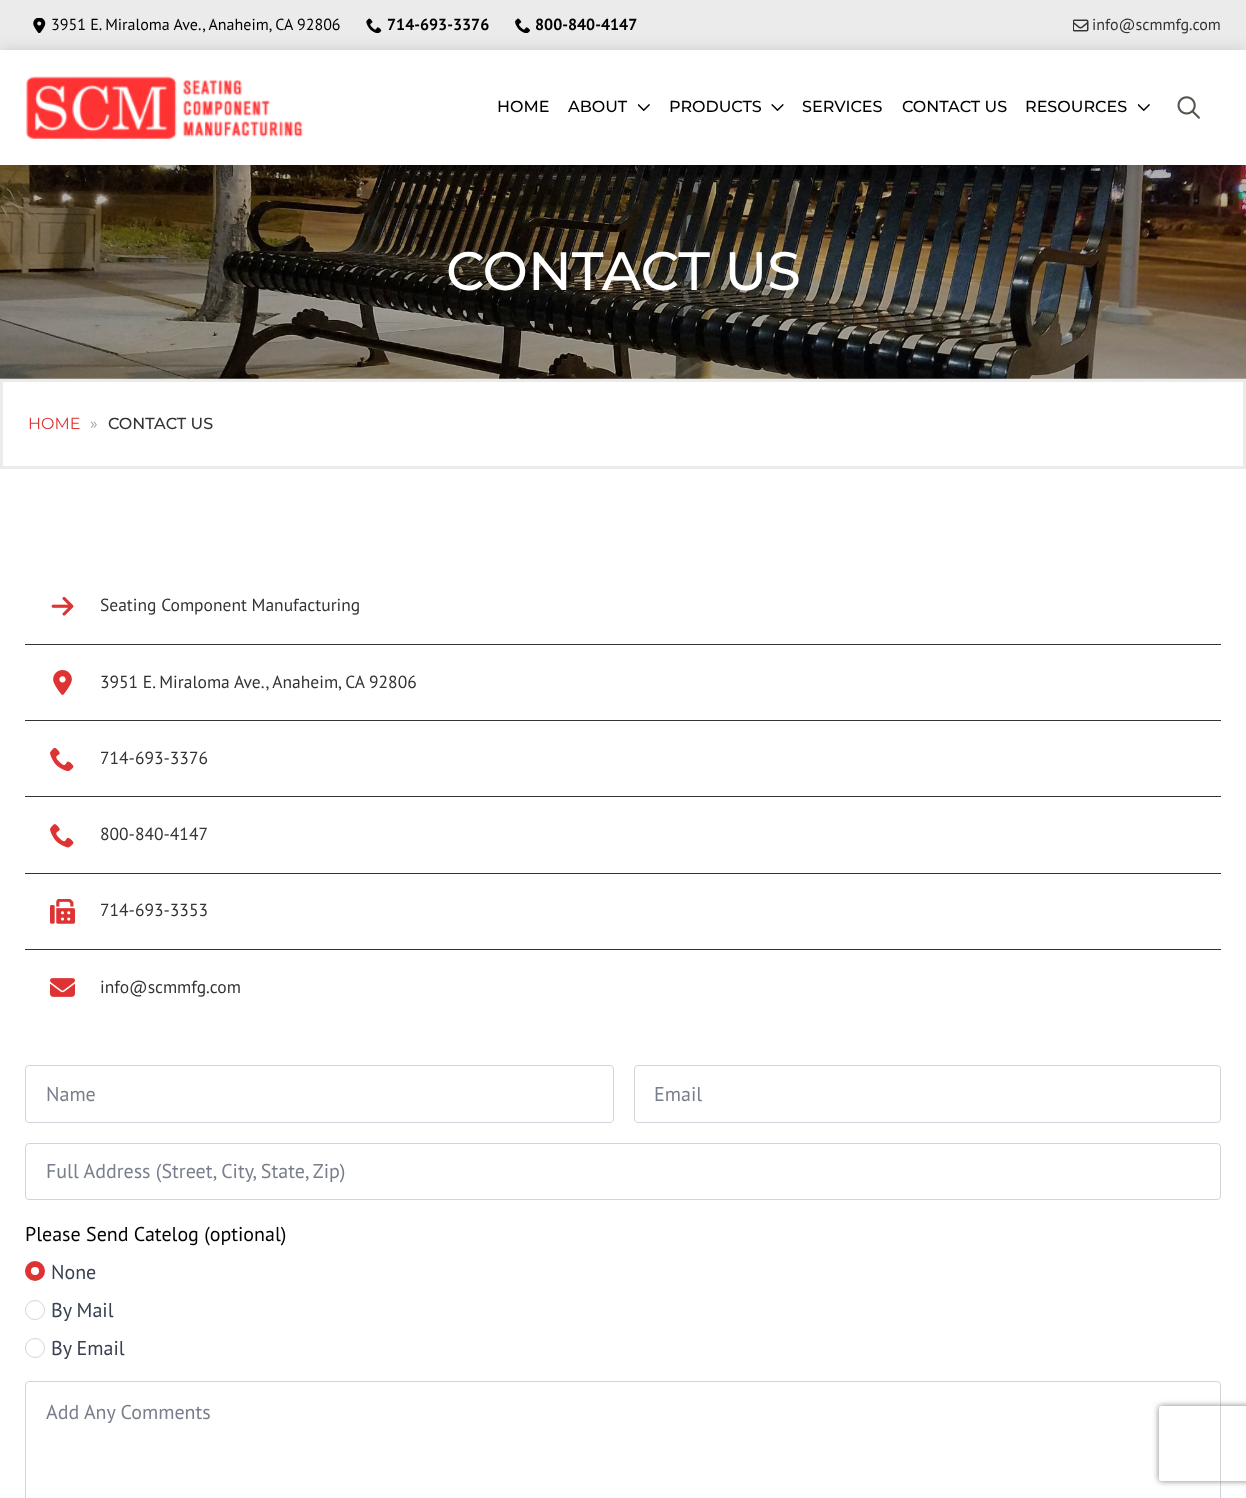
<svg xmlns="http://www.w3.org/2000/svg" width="1246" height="1498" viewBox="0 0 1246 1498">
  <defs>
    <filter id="blur1" x="-50%" y="-200%" width="200%" height="500%"><feGaussianBlur stdDeviation="7.5"/></filter>
    <clipPath id="clip1"><path d="M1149 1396H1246V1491H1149ZM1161.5 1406H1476.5C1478 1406 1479 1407 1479 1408.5V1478.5C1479 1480 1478 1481 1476.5 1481H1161.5C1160 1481 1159 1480 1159 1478.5V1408.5C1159 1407 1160 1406 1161.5 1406Z" clip-rule="evenodd"/></clipPath>
    <filter id="blur2" x="-50%" y="-200%" width="200%" height="500%"><feGaussianBlur stdDeviation="3"/></filter>
  </defs>
  <rect width="100%" height="100%" fill="#ffffff"/>
  <rect x="0" y="0" width="1246" height="50" fill="#ebebeb"/>
  <image x="33" y="18" width="13" height="15" href="img1.png"/>
  <text x="51" y="30" font-family="PT Sans" font-size="16" fill="#000000">3951 E. Miraloma Ave., Anaheim, CA 92806</text>
  <image x="366" y="18" width="16" height="15" href="img2.png"/>
  <text x="387" y="30" font-family="PT Sans" font-size="16" font-weight="bold" fill="#000000">714-693-3376</text>
  <image x="515" y="18" width="15" height="15" href="img3.png"/>
  <text x="535" y="30" font-family="PT Sans" font-size="16" font-weight="bold" fill="#000000">800-840-4147</text>
  <image x="1073" y="19" width="16" height="13" href="img4.png"/>
  <text x="1092" y="30" font-family="PT Sans" font-size="16" fill="#333333">info@scmmfg.com</text>
  <image x="0" y="165" width="1246" height="214" href="img9.png"/>
  <rect x="0" y="50" width="1246" height="115" fill="#000000" fill-opacity="0.14" filter="url(#blur1)"/>
  <rect x="0" y="50" width="1246" height="115" fill="#ffffff"/>
  <image x="26" y="76" width="277" height="63" href="img5.png"/>
  <text x="497" y="112" font-family="Montserrat" font-size="16" font-weight="500" fill="#000000">HOME</text>
  <text x="568" y="112" font-family="Montserrat" font-size="16" font-weight="500" fill="#000000">ABOUT</text>
  <image x="638" y="104" width="12" height="7" href="img6.png"/>
  <text x="669" y="112" font-family="Montserrat" font-size="16" font-weight="500" fill="#000000">PRODUCTS</text>
  <image x="771" y="104" width="13" height="7" href="img7.png"/>
  <text x="802" y="112" font-family="Montserrat" font-size="16" font-weight="500" fill="#000000">SERVICES</text>
  <text x="902" y="112" font-family="Montserrat" font-size="16" font-weight="500" fill="#000000">CONTACT US</text>
  <text x="1025" y="112" font-family="Montserrat" font-size="16" font-weight="500" fill="#000000">RESOURCES</text>
  <image x="1138" y="104" width="12" height="7" href="img6.png"/>
  <image x="1177" y="96" width="23" height="23" href="img8.png"/>
  <text x="446" y="290" font-family="Montserrat" font-size="54" font-weight="500" fill="#ffffff">CONTACT US</text>
  <rect x="1.5" y="380.5" width="1243" height="87" fill="none" stroke="#ebebeb" stroke-width="3"/>
  <text x="28" y="429" font-family="Montserrat" font-size="16" fill="#dd3333">HOME</text>
  <text x="90" y="429" font-family="Montserrat" font-size="16" fill="#999999">»</text>
  <text x="108" y="429" font-family="Montserrat" font-size="16" font-weight="500" fill="#333333">CONTACT US</text>
  <rect x="25" y="644" width="1196" height="1" fill="#333333"/>
  <image x="51" y="596" width="23" height="20" href="img10.png"/>
  <text x="100" y="611" font-family="PT Sans" font-size="17.5" fill="#333333">Seating Component Manufacturing</text>
  <rect x="25" y="720" width="1196" height="1" fill="#333333"/>
  <image x="53" y="670" width="19" height="25" href="img11.png"/>
  <text x="100" y="688" font-family="PT Sans" font-size="17.5" fill="#333333">3951 E. Miraloma Ave., Anaheim, CA 92806</text>
  <rect x="25" y="796" width="1196" height="1" fill="#333333"/>
  <image x="50" y="747" width="24" height="24" href="img12.png"/>
  <text x="100" y="764" font-family="PT Sans" font-size="17.5" fill="#333333">714-693-3376</text>
  <rect x="25" y="873" width="1196" height="1" fill="#333333"/>
  <image x="50" y="824" width="24" height="24" href="img13.png"/>
  <text x="100" y="840" font-family="PT Sans" font-size="17.5" fill="#333333">800-840-4147</text>
  <rect x="25" y="949" width="1196" height="1" fill="#333333"/>
  <image x="50" y="899" width="25" height="25" href="img14.png"/>
  <text x="100" y="916" font-family="PT Sans" font-size="17.5" fill="#333333">714-693-3353</text>
  <image x="50" y="978" width="25" height="19" href="img15.png"/>
  <text x="100" y="993" font-family="PT Sans" font-size="17.5" fill="#333333">info@scmmfg.com</text>
  <rect x="25.5" y="1065.5" width="588" height="57" rx="3.5" fill="none" stroke="#d1d5db"/>
  <text x="46" y="1101" font-family="PT Sans" font-size="20" fill="#787e8b">Name</text>
  <rect x="634.5" y="1065.5" width="586" height="57" rx="3.5" fill="none" stroke="#d1d5db"/>
  <text x="654" y="1101" font-family="PT Sans" font-size="20" fill="#787e8b">Email</text>
  <rect x="25.5" y="1143.5" width="1195" height="56" rx="3.5" fill="none" stroke="#d1d5db"/>
  <text x="46" y="1178" font-family="PT Sans" font-size="20" fill="#787e8b">Full Address (Street, City, State, Zip)</text>
  <text x="25" y="1241" font-family="PT Sans" font-size="20" fill="#000000">Please Send Catelog (optional)</text>
  <circle cx="35" cy="1271" r="10" fill="#dd3333"/>
  <circle cx="35" cy="1271" r="4" fill="#ffffff"/>
  <text x="51" y="1279" font-family="PT Sans" font-size="20" fill="#374151">None</text>
  <circle cx="35" cy="1310" r="9.5" fill="none" stroke="#d1d5db"/>
  <text x="51" y="1317" font-family="PT Sans" font-size="20" fill="#374151">By Mail</text>
  <circle cx="35" cy="1348" r="9.5" fill="none" stroke="#d1d5db"/>
  <text x="51" y="1355" font-family="PT Sans" font-size="20" fill="#374151">By Email</text>
  <rect x="25.5" y="1381.5" width="1195" height="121" rx="3.5" fill="none" stroke="#d1d5db"/>
  <text x="46" y="1419" font-family="PT Sans" font-size="20" fill="#787e8b">Add Any Comments</text>
  <g clip-path="url(#clip1)">
    <rect x="1159" y="1406" width="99" height="75" rx="2.5" fill="#808080" filter="url(#blur2)"/>
  </g>
</svg>
